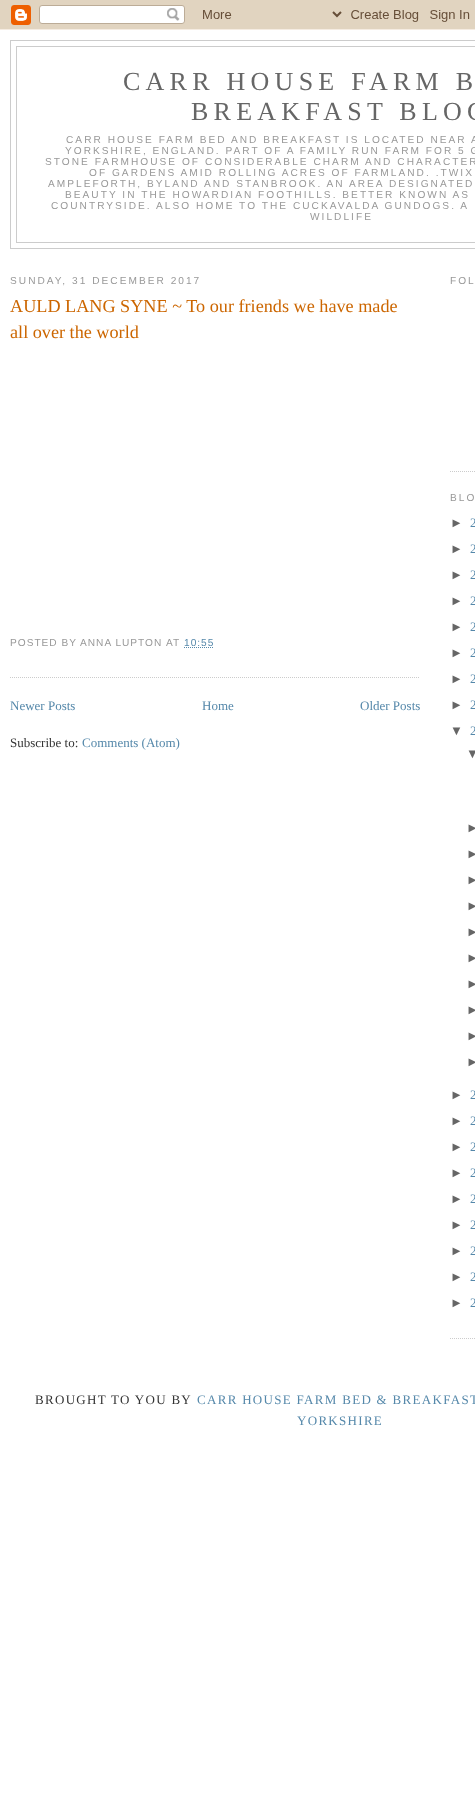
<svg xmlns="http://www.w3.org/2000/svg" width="475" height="1816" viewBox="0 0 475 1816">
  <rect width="100%" height="100%" fill="#ffffff"/>
  <image x="0" y="0" width="475" height="30" href="img1.png"/>
  <rect x="10.5" y="40.5" width="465" height="208" fill="none" stroke="#cccccc"/>
  <rect x="16.5" y="46.5" width="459" height="196" fill="none" stroke="#cccccc"/>
  <text x="123" y="90" font-family="Liberation Serif" font-size="26" letter-spacing="5.25" fill="#666666">CARR HOUSE FARM B</text>
  <text x="191" y="120" font-family="Liberation Serif" font-size="26" letter-spacing="5.25" fill="#666666">BREAKFAST BLOG</text>
  <text x="66" y="143" font-family="Liberation Sans" font-size="10.15" letter-spacing="2.03" fill="#999999">CARR HOUSE FARM BED AND BREAKFAST IS LOCATED NEAR A</text>
  <text x="65" y="154" font-family="Liberation Sans" font-size="10.15" letter-spacing="2.03" fill="#999999">YORKSHIRE, ENGLAND. PART OF A FAMILY RUN FARM FOR 5 G</text>
  <text x="45" y="165" font-family="Liberation Sans" font-size="10.15" letter-spacing="2.03" fill="#999999">STONE FARMHOUSE OF CONSIDERABLE CHARM AND CHARACTER</text>
  <text x="89" y="176" font-family="Liberation Sans" font-size="10.15" letter-spacing="2.03" fill="#999999">OF GARDENS AMID ROLLING ACRES OF FARMLAND. .TWIX</text>
  <text x="48" y="187" font-family="Liberation Sans" font-size="10.15" letter-spacing="2.03" fill="#999999">AMPLEFORTH, BYLAND AND STANBROOK. AN AREA DESIGNATED</text>
  <text x="65" y="198" font-family="Liberation Sans" font-size="10.15" letter-spacing="2.03" fill="#999999">BEAUTY IN THE HOWARDIAN FOOTHILLS. BETTER KNOWN AS</text>
  <text x="51" y="209" font-family="Liberation Sans" font-size="10.15" letter-spacing="2.03" fill="#999999">COUNTRYSIDE. ALSO HOME TO THE CUCKAVALDA GUNDOGS. A</text>
  <text x="310" y="220" font-family="Liberation Sans" font-size="10.15" letter-spacing="2.03" fill="#999999">WILDLIFE</text>
  <text x="10" y="284" font-family="Liberation Sans" font-size="10.15" letter-spacing="2.03" fill="#999999">SUNDAY, 31 DECEMBER 2017</text>
  <path d="M10 677.5H420" fill="none" stroke="#cccccc" stroke-dasharray="1 1"/>
  <text x="10" y="312" font-family="Liberation Serif" font-size="18.2" fill="#cc6600">AULD LANG SYNE ~ To our friends we have made</text>
  <text x="10" y="338" font-family="Liberation Serif" font-size="18.2" fill="#cc6600">all over the world</text>
  <text x="10" y="646" font-family="Liberation Sans" font-size="10.15" letter-spacing="1" fill="#999999">POSTED BY</text>
  <text x="80" y="646" font-family="Liberation Sans" font-size="10.15" letter-spacing="1" fill="#999999">ANNA LUPTON</text>
  <text x="166" y="646" font-family="Liberation Sans" font-size="10.15" letter-spacing="1" fill="#999999">AT</text>
  <text x="184" y="646" font-family="Liberation Sans" font-size="10.15" letter-spacing="1" fill="#5588aa">10:55</text>
  <path d="M184 647.5H214" fill="none" stroke="#5588aa" stroke-dasharray="1 1"/>
  <text x="10" y="710" font-family="Liberation Serif" font-size="13" fill="#5588aa">Newer Posts</text>
  <text x="202" y="710" font-family="Liberation Serif" font-size="13" fill="#5588aa">Home</text>
  <text x="360" y="710" font-family="Liberation Serif" font-size="13" fill="#5588aa">Older Posts</text>
  <text x="10" y="747" font-family="Liberation Serif" font-size="13" fill="#333333">Subscribe to:</text>
  <text x="82" y="747" font-family="Liberation Serif" font-size="13" fill="#5588aa">Comments (Atom)</text>
  <path d="M450 471.5H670" fill="none" stroke="#cccccc" stroke-dasharray="1 1"/>
  <text x="450" y="284" font-family="Liberation Sans" font-size="10.15" letter-spacing="2.03" fill="#999999">FOL</text>
  <path d="M450 1338.5H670" fill="none" stroke="#cccccc" stroke-dasharray="1 1"/>
  <text x="450" y="501" font-family="Liberation Sans" font-size="10.15" letter-spacing="2.03" fill="#999999">BLO</text>
  <text x="450" y="527" font-family="Liberation Sans" font-size="13" fill="#666666">►</text>
  <text x="470" y="527" font-family="Liberation Serif" font-size="13" fill="#5588aa">2</text>
  <text x="450" y="553" font-family="Liberation Sans" font-size="13" fill="#666666">►</text>
  <text x="470" y="553" font-family="Liberation Serif" font-size="13" fill="#5588aa">2</text>
  <text x="450" y="579" font-family="Liberation Sans" font-size="13" fill="#666666">►</text>
  <text x="470" y="579" font-family="Liberation Serif" font-size="13" fill="#5588aa">2</text>
  <text x="450" y="605" font-family="Liberation Sans" font-size="13" fill="#666666">►</text>
  <text x="470" y="605" font-family="Liberation Serif" font-size="13" fill="#5588aa">2</text>
  <text x="450" y="631" font-family="Liberation Sans" font-size="13" fill="#666666">►</text>
  <text x="470" y="631" font-family="Liberation Serif" font-size="13" fill="#5588aa">2</text>
  <text x="450" y="657" font-family="Liberation Sans" font-size="13" fill="#666666">►</text>
  <text x="470" y="657" font-family="Liberation Serif" font-size="13" fill="#5588aa">2</text>
  <text x="450" y="683" font-family="Liberation Sans" font-size="13" fill="#666666">►</text>
  <text x="470" y="683" font-family="Liberation Serif" font-size="13" fill="#5588aa">2</text>
  <text x="450" y="709" font-family="Liberation Sans" font-size="13" fill="#666666">►</text>
  <text x="470" y="709" font-family="Liberation Serif" font-size="13" fill="#5588aa">2</text>
  <text x="450" y="735" font-family="Liberation Sans" font-size="13" fill="#666666">▼</text>
  <text x="470" y="735" font-family="Liberation Serif" font-size="13" fill="#5588aa">2</text>
  <text x="466" y="758" font-family="Liberation Sans" font-size="13" fill="#666666">▼</text>
  <text x="466" y="832" font-family="Liberation Sans" font-size="13" fill="#666666">►</text>
  <text x="466" y="858" font-family="Liberation Sans" font-size="13" fill="#666666">►</text>
  <text x="466" y="884" font-family="Liberation Sans" font-size="13" fill="#666666">►</text>
  <text x="466" y="910" font-family="Liberation Sans" font-size="13" fill="#666666">►</text>
  <text x="466" y="936" font-family="Liberation Sans" font-size="13" fill="#666666">►</text>
  <text x="466" y="962" font-family="Liberation Sans" font-size="13" fill="#666666">►</text>
  <text x="466" y="988" font-family="Liberation Sans" font-size="13" fill="#666666">►</text>
  <text x="466" y="1014" font-family="Liberation Sans" font-size="13" fill="#666666">►</text>
  <text x="466" y="1040" font-family="Liberation Sans" font-size="13" fill="#666666">►</text>
  <text x="466" y="1066" font-family="Liberation Sans" font-size="13" fill="#666666">►</text>
  <text x="450" y="1099" font-family="Liberation Sans" font-size="13" fill="#666666">►</text>
  <text x="470" y="1099" font-family="Liberation Serif" font-size="13" fill="#5588aa">2</text>
  <text x="450" y="1125" font-family="Liberation Sans" font-size="13" fill="#666666">►</text>
  <text x="470" y="1125" font-family="Liberation Serif" font-size="13" fill="#5588aa">2</text>
  <text x="450" y="1151" font-family="Liberation Sans" font-size="13" fill="#666666">►</text>
  <text x="470" y="1151" font-family="Liberation Serif" font-size="13" fill="#5588aa">2</text>
  <text x="450" y="1177" font-family="Liberation Sans" font-size="13" fill="#666666">►</text>
  <text x="470" y="1177" font-family="Liberation Serif" font-size="13" fill="#5588aa">2</text>
  <text x="450" y="1203" font-family="Liberation Sans" font-size="13" fill="#666666">►</text>
  <text x="470" y="1203" font-family="Liberation Serif" font-size="13" fill="#5588aa">2</text>
  <text x="450" y="1229" font-family="Liberation Sans" font-size="13" fill="#666666">►</text>
  <text x="470" y="1229" font-family="Liberation Serif" font-size="13" fill="#5588aa">2</text>
  <text x="450" y="1255" font-family="Liberation Sans" font-size="13" fill="#666666">►</text>
  <text x="470" y="1255" font-family="Liberation Serif" font-size="13" fill="#5588aa">2</text>
  <text x="450" y="1281" font-family="Liberation Sans" font-size="13" fill="#666666">►</text>
  <text x="470" y="1281" font-family="Liberation Serif" font-size="13" fill="#5588aa">2</text>
  <text x="450" y="1307" font-family="Liberation Sans" font-size="13" fill="#666666">►</text>
  <text x="470" y="1307" font-family="Liberation Serif" font-size="13" fill="#5588aa">2</text>
  <text x="35" y="1404" font-family="Liberation Serif" font-size="13" letter-spacing="1.3" fill="#333333">BROUGHT TO YOU BY</text>
  <text x="197" y="1404" font-family="Liberation Serif" font-size="13" letter-spacing="1.3" fill="#5588aa">CARR HOUSE FARM BED &amp; BREAKFAST</text>
  <text x="297" y="1425" font-family="Liberation Serif" font-size="13" letter-spacing="1.3" fill="#5588aa">YORKSHIRE</text>
</svg>
